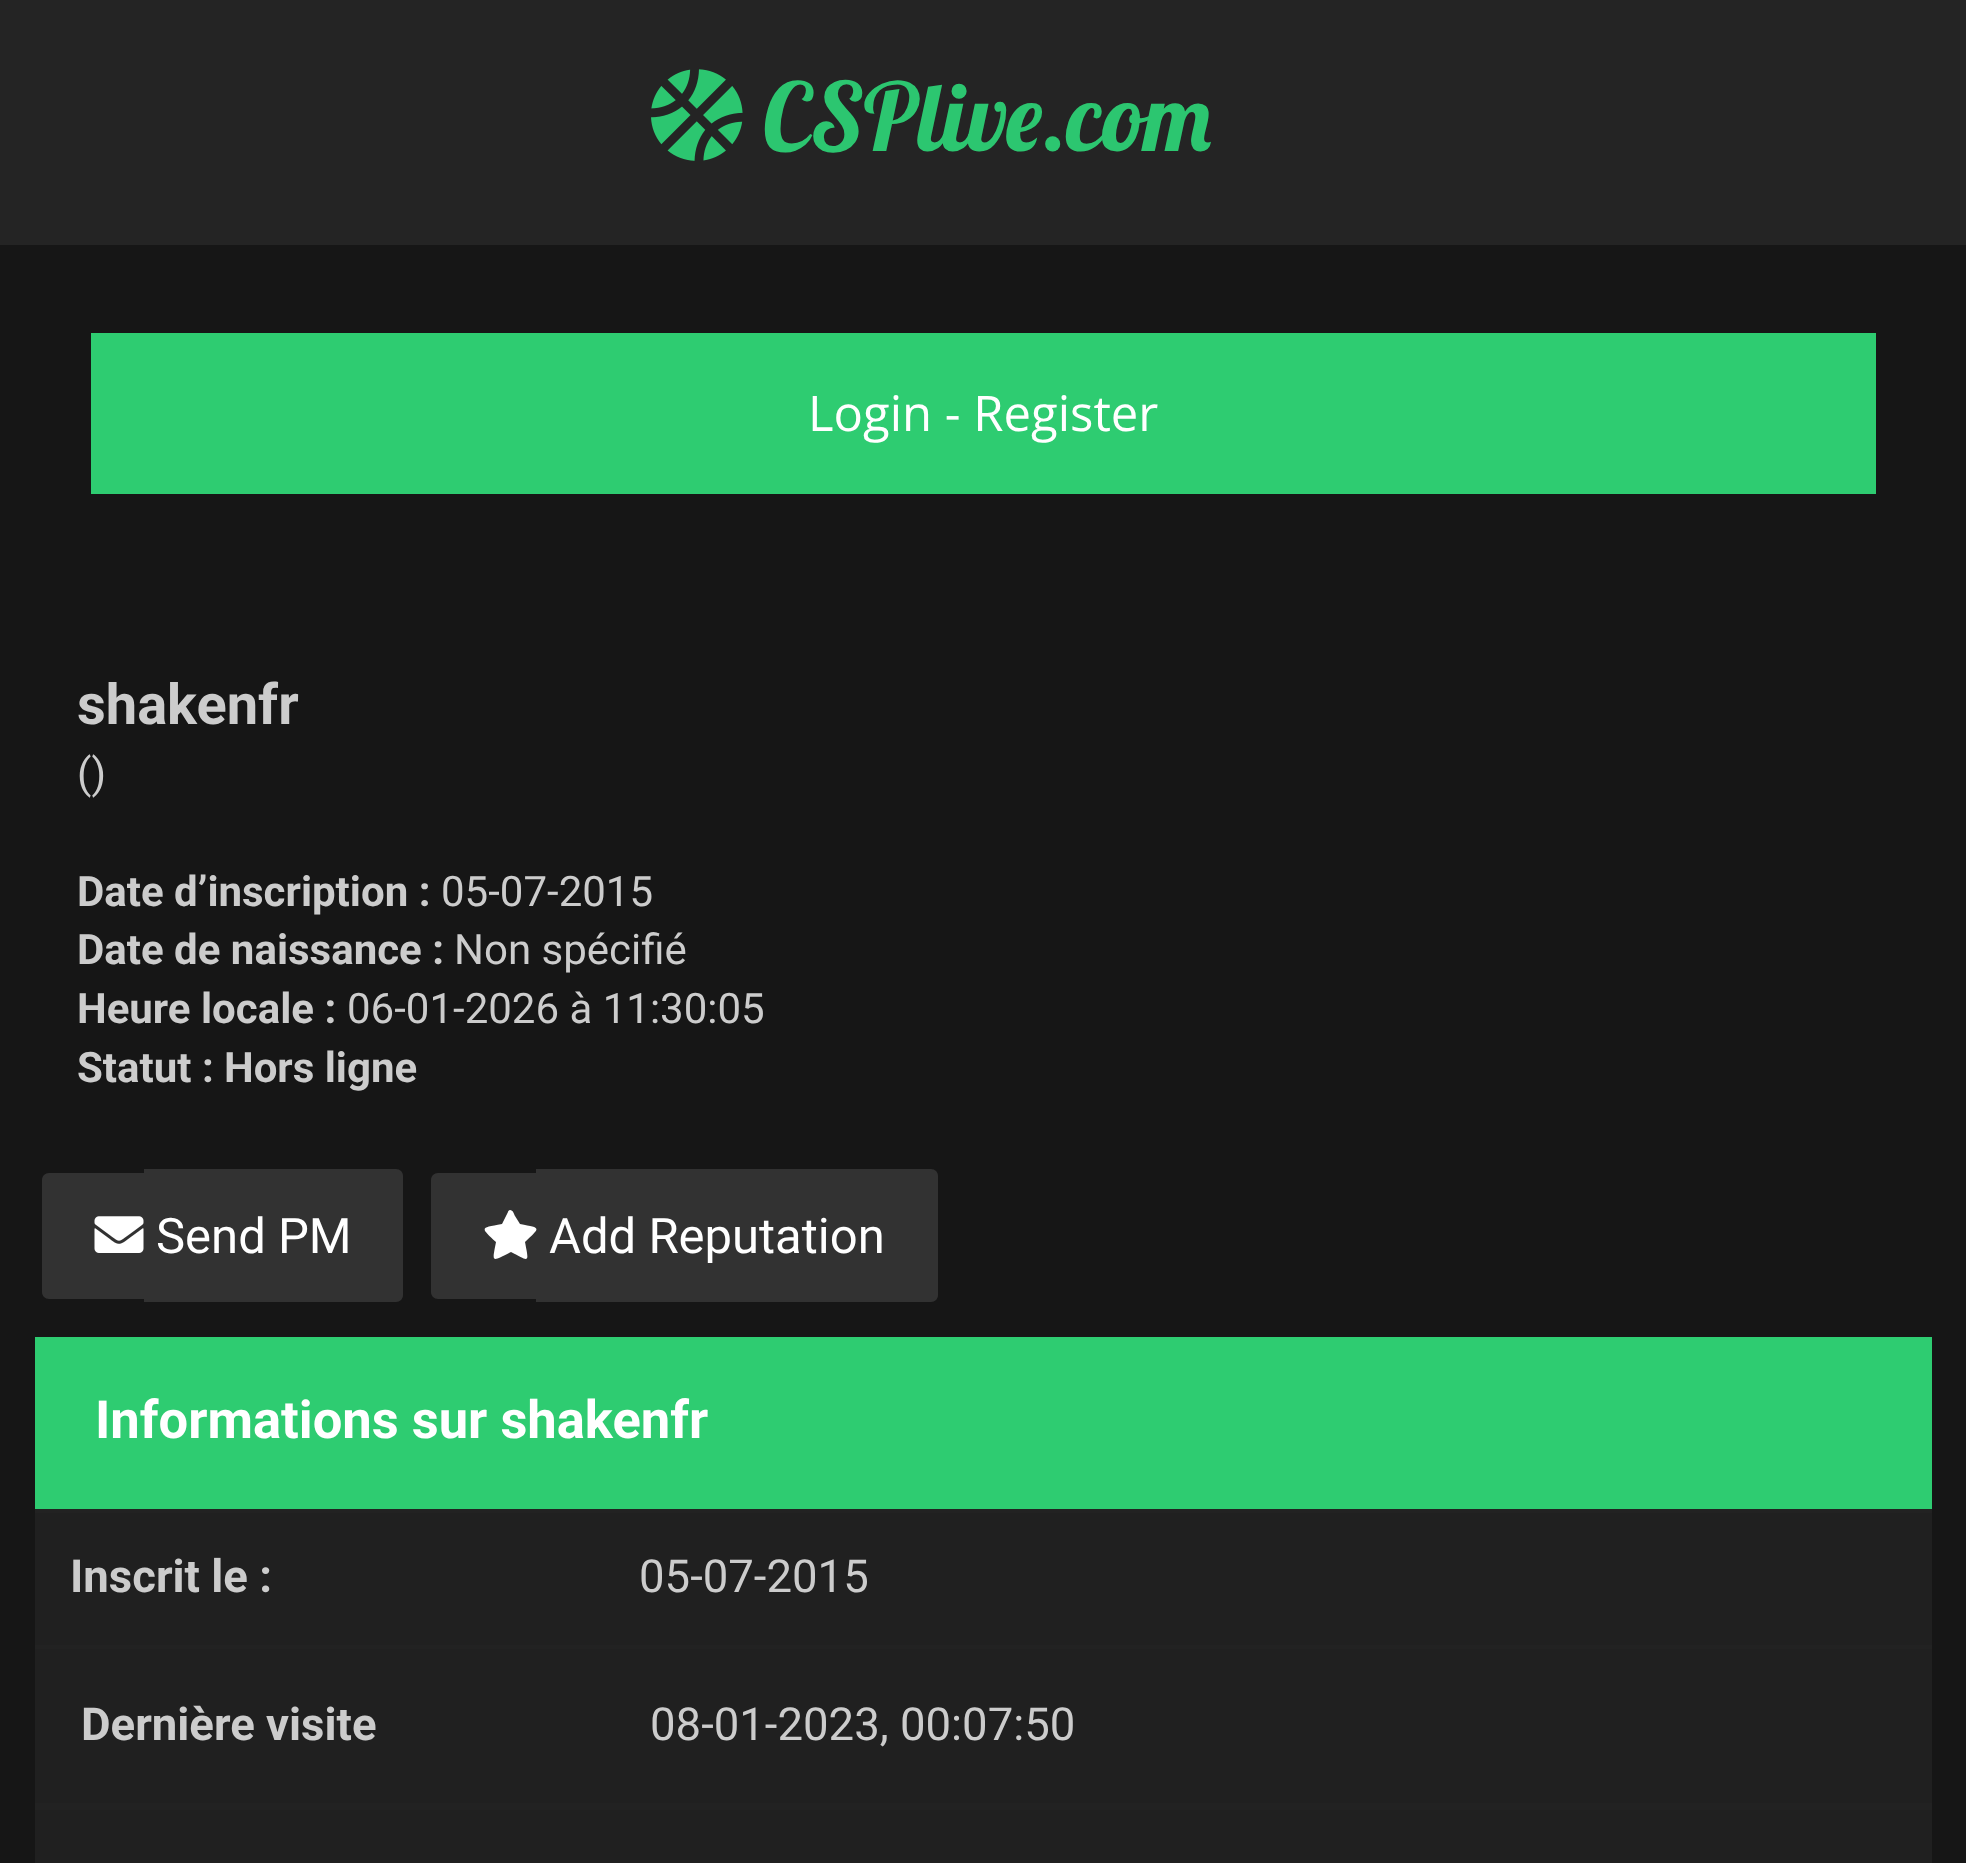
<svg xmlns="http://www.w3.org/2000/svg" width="1966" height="1863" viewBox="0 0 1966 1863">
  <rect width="100%" height="100%" fill="#161616"/>
  <rect x="0" y="0" width="1966" height="245" fill="#242424"/>
  <image x="651" y="69" width="92" height="92" href="img1.png"/>
  <text x="763" y="151" font-family="Lobster" font-size="94.5" fill="#2cc670">CSPlive.com</text>
  <rect x="91" y="333" width="1785" height="161" fill="#2ecc71"/>
  <text x="808" y="431" font-family="Open Sans" font-size="49" fill="#ffffff">Login - Register</text>
  <text x="77" y="724" font-family="Roboto" font-size="56" font-weight="bold" fill="#cccccc">shakenfr</text>
  <text x="77" y="788" font-family="Roboto" font-size="42" fill="#cccccc">()</text>
  <text x="77" y="906" font-family="Roboto" font-size="42" font-weight="bold" fill="#cccccc">Date d’inscription :</text>
  <text x="441" y="906" font-family="Roboto" font-size="42" fill="#cccccc">05-07-2015</text>
  <text x="77" y="964" font-family="Roboto" font-size="42" font-weight="bold" fill="#cccccc">Date de naissance :</text>
  <text x="454" y="964" font-family="Roboto" font-size="42" fill="#cccccc">Non spécifié</text>
  <text x="77" y="1023" font-family="Roboto" font-size="42" font-weight="bold" fill="#cccccc">Heure locale :</text>
  <text x="347" y="1023" font-family="Roboto" font-size="42" fill="#cccccc">06-01-2026 à 11:30:05</text>
  <text x="77" y="1082" font-family="Roboto" font-size="42" font-weight="bold" fill="#cccccc">Statut :</text>
  <text x="224" y="1082" font-family="Roboto" font-size="42" font-weight="bold" fill="#cccccc">Hors ligne</text>
  <path d="M49 1173H144V1299H49C45 1299 42 1296 42 1292V1180C42 1176 45 1173 49 1173Z" fill="#323232"/>
  <path d="M144 1169H396C400 1169 403 1172 403 1176V1295C403 1299 400 1302 396 1302H144Z" fill="#323232"/>
  <image x="94" y="1216" width="50" height="37" href="img2.png"/>
  <text x="156" y="1253" font-family="Roboto" font-size="49" fill="#ffffff">Send PM</text>
  <path d="M438 1173H536V1299H438C434 1299 431 1296 431 1292V1180C431 1176 434 1173 438 1173Z" fill="#323232"/>
  <path d="M536 1169H931C935 1169 938 1172 938 1176V1295C938 1299 935 1302 931 1302H536Z" fill="#323232"/>
  <path d="M508 1212L502 1224C480 1228 480 1227 496 1242C492 1263 491 1262 511 1252C530 1262 529 1263 525 1242C541 1227 541 1228 520 1224L515 1216C514 1214 513 1210 510 1210C509 1210 508 1211 508 1212Z" fill="#ffffff"/>
  <text x="549" y="1253" font-family="Roboto" font-size="49" fill="#ffffff">Add Reputation</text>
  <rect x="35" y="1337" width="1897" height="172" fill="#2ecc71"/>
  <text x="95" y="1438" font-family="Roboto" font-size="52.5" font-weight="bold" fill="#ffffff">Informations sur shakenfr</text>
  <rect x="35" y="1513" width="1897" height="132" fill="#202020"/>
  <rect x="35" y="1509" width="1897" height="4" fill="#222222"/>
  <rect x="35" y="1645" width="1897" height="4" fill="#222222"/>
  <text x="70" y="1592" font-family="Roboto" font-size="45.5" font-weight="bold" fill="#cccccc">Inscrit le :</text>
  <text x="639" y="1592" font-family="Roboto" font-size="45.5" fill="#cccccc">05-07-2015</text>
  <rect x="35" y="1649" width="1897" height="154" fill="#202020"/>
  <rect x="35" y="1803" width="1897" height="3" fill="#222222"/>
  <text x="81" y="1740" font-family="Roboto" font-size="45.5" font-weight="bold" fill="#cccccc">Dernière visite</text>
  <text x="650" y="1740" font-family="Roboto" font-size="45.5" fill="#cccccc">08-01-2023, 00:07:50</text>
  <rect x="35" y="1810" width="1897" height="53" fill="#202020"/>
  <rect x="35" y="1806" width="1897" height="4" fill="#222222"/>
</svg>
